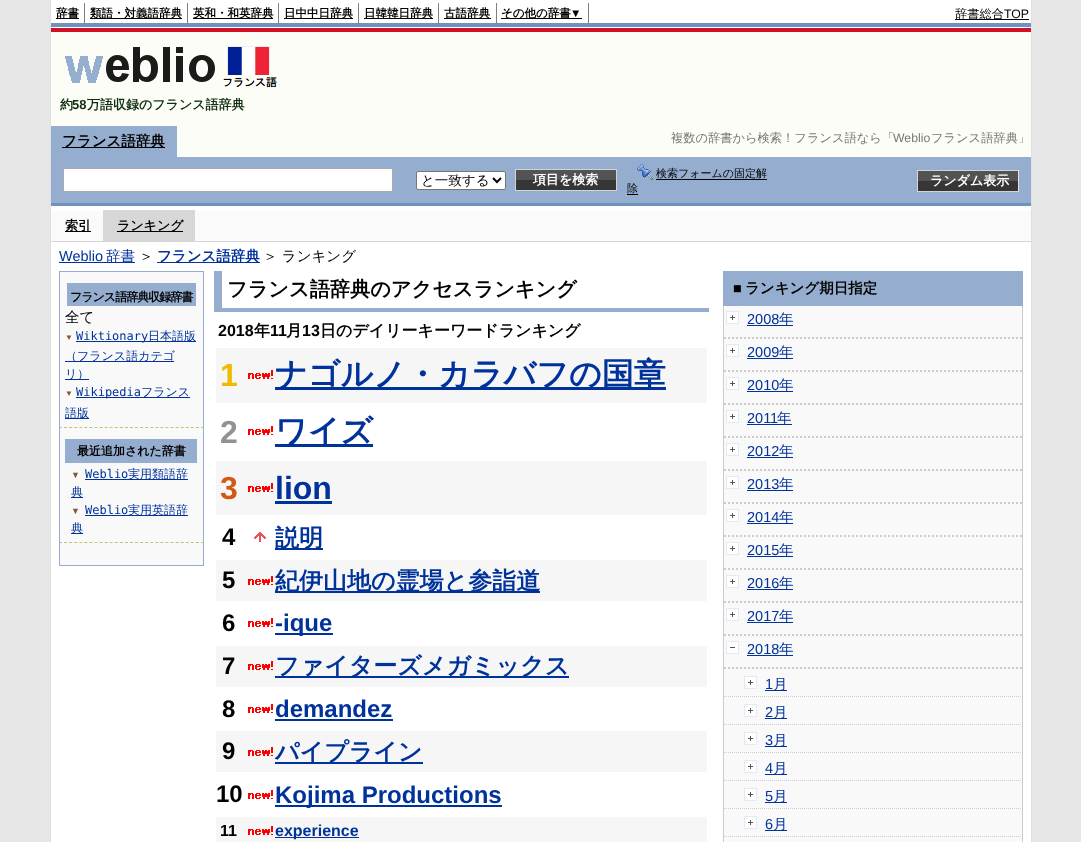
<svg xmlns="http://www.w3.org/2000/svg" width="1081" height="842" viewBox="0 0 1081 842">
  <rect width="100%" height="100%" fill="#e6e6e6"/>
  <rect x="51" y="0" width="980" height="842" fill="#ffffff"/>
  <rect x="1031" y="0" width="1" height="842" fill="#e0e0e0"/>
  <rect x="50" y="0" width="1" height="842" fill="#e0e0e0"/>
  <rect x="51" y="23" width="980" height="4" fill="#7092be"/>
  <rect x="84" y="3" width="1" height="21" fill="#7f7f7f"/>
  <rect x="56" y="18" width="23" height="1" fill="#000000"/>
  <text x="56" y="17" font-family="WenQuanYi Zen Hei" font-size="11.5" font-weight="bold" fill="#000000">辞書</text>
  <rect x="187" y="3" width="1" height="21" fill="#7f7f7f"/>
  <rect x="90" y="18" width="92" height="1" fill="#000000"/>
  <text x="90" y="17" font-family="WenQuanYi Zen Hei" font-size="11.5" font-weight="bold" fill="#000000">類語・対義語辞典</text>
  <rect x="278" y="3" width="1" height="21" fill="#7f7f7f"/>
  <rect x="193" y="18" width="80" height="1" fill="#000000"/>
  <text x="193" y="17" font-family="WenQuanYi Zen Hei" font-size="11.5" font-weight="bold" fill="#000000">英和・和英辞典</text>
  <rect x="358" y="3" width="1" height="21" fill="#7f7f7f"/>
  <rect x="284" y="18" width="69" height="1" fill="#000000"/>
  <text x="284" y="17" font-family="WenQuanYi Zen Hei" font-size="11.5" font-weight="bold" fill="#000000">日中中日辞典</text>
  <rect x="438" y="3" width="1" height="21" fill="#7f7f7f"/>
  <rect x="364" y="18" width="69" height="1" fill="#000000"/>
  <text x="364" y="17" font-family="WenQuanYi Zen Hei" font-size="11.5" font-weight="bold" fill="#000000">日韓韓日辞典</text>
  <rect x="496" y="3" width="1" height="21" fill="#7f7f7f"/>
  <rect x="444" y="18" width="47" height="1" fill="#000000"/>
  <text x="444" y="17" font-family="WenQuanYi Zen Hei" font-size="11.5" font-weight="bold" fill="#000000">古語辞典</text>
  <rect x="588" y="3" width="1" height="21" fill="#7f7f7f"/>
  <rect x="501" y="18" width="81" height="1" fill="#000000"/>
  <text x="501" y="17" font-family="WenQuanYi Zen Hei" font-size="11.5" font-weight="bold" fill="#000000">その他の辞書</text>
  <text x="570" y="17" font-family="Liberation Sans" font-size="11.5" font-weight="bold" fill="#000000">▼</text>
  <rect x="955" y="19" width="74" height="1" fill="#000000"/>
  <text x="955" y="18" font-family="WenQuanYi Zen Hei" font-size="12.25" font-weight="500" fill="#000000">辞書総合</text>
  <text x="1004" y="18" font-family="Liberation Sans" font-size="12.25" fill="#000000">TOP</text>
  <rect x="51" y="32" width="980" height="94" fill="#fdfdf7"/>
  <rect x="51" y="28" width="980" height="4" fill="#ce1126"/>
  <image x="65" y="46" width="212" height="42" href="img1.png"/>
  <text x="60" y="109" font-family="WenQuanYi Zen Hei" font-size="13" font-weight="bold" fill="#103011">約</text>
  <text x="72" y="109" font-family="Liberation Sans" font-size="13" font-weight="bold" fill="#103011">58</text>
  <text x="87" y="109" font-family="WenQuanYi Zen Hei" font-size="13" font-weight="bold" fill="#103011">万語収録のフランス語辞典</text>
  <rect x="177" y="126" width="854" height="31" fill="#fdfdf7"/>
  <text x="671" y="142" font-family="WenQuanYi Zen Hei" font-size="12.25" font-weight="500" fill="#777777">複数の辞書から検索！フランス語なら「</text>
  <text x="893" y="142" font-family="Liberation Sans" font-size="12.25" fill="#777777">Weblio</text>
  <text x="931" y="142" font-family="WenQuanYi Zen Hei" font-size="12.25" font-weight="500" fill="#777777">フランス語辞典」</text>
  <rect x="51" y="126" width="126" height="31" fill="#95adce"/>
  <rect x="62" y="147" width="103" height="1" fill="#000000"/>
  <text x="62" y="146" font-family="WenQuanYi Zen Hei" font-size="14.5" font-weight="bold" fill="#000000">フランス語辞典</text>
  <rect x="51" y="157" width="980" height="46" fill="#95adce"/>
  <rect x="51" y="203" width="980" height="3" fill="#7092be"/>
  <rect x="64" y="169" width="328" height="22" fill="#ffffff"/>
  <rect x="63" y="168" width="330" height="1" fill="#a9a9a9"/>
  <rect x="392" y="168" width="1" height="24" fill="#a9a9a9"/>
  <rect x="63" y="191" width="330" height="1" fill="#a9a9a9"/>
  <rect x="63" y="168" width="1" height="24" fill="#a9a9a9"/>
  <rect x="416.5" y="171.5" width="89" height="18" rx="1.5" fill="#ffffff" stroke="#767676"/>
  <path d="M493 178L497 182L501 178" fill="none" stroke="#000000" stroke-width="2"/>
  <text x="421" y="185" font-family="WenQuanYi Zen Hei" font-size="13.5" font-weight="500" fill="#000000">と一致する</text>
  <rect x="515.5" y="169.5" width="101" height="21" fill="none" stroke="#d4d4d4"/>
  <rect x="516" y="170" width="100" height="10" fill="#535353"/>
  <rect x="516" y="180" width="100" height="10" fill="#363636"/>
  <text x="533" y="184" font-family="WenQuanYi Zen Hei" font-size="13" font-weight="bold" fill="#ffffff">項目を検索</text>
  <image x="637" y="164" width="16" height="16" href="img2.png"/>
  <text x="656" y="177" font-family="WenQuanYi Zen Hei" font-size="11" font-weight="500" fill="#000000">検索フォームの固定解</text>
  <rect x="656" y="179" width="111" height="1" fill="#000000"/>
  <text x="627" y="192" font-family="WenQuanYi Zen Hei" font-size="11" font-weight="500" fill="#000000">除</text>
  <rect x="627" y="194" width="11" height="1" fill="#000000"/>
  <rect x="917" y="170" width="102" height="1" fill="#d4d4d4"/>
  <rect x="1018" y="170" width="1" height="22" fill="#e4e4e4"/>
  <rect x="917" y="191" width="102" height="1" fill="#d4d4d4"/>
  <rect x="917" y="170" width="1" height="22" fill="#d4d4d4"/>
  <rect x="918" y="171" width="100" height="10" fill="#535353"/>
  <rect x="918" y="181" width="100" height="10" fill="#363636"/>
  <text x="930" y="185" font-family="WenQuanYi Zen Hei" font-size="13" font-weight="bold" fill="#ffffff">ランダム表示</text>
  <rect x="51" y="211" width="980" height="30" fill="#fafafa"/>
  <rect x="51" y="241" width="980" height="1" fill="#d5d5d5"/>
  <rect x="65" y="231" width="26" height="1" fill="#000000"/>
  <text x="65" y="230" font-family="WenQuanYi Zen Hei" font-size="13" font-weight="bold" fill="#000000">索引</text>
  <rect x="103" y="210" width="92" height="31" fill="#d7d7d7"/>
  <rect x="117" y="231" width="66" height="1" fill="#000000"/>
  <text x="117" y="230" font-family="WenQuanYi Zen Hei" font-size="13" font-weight="bold" fill="#000000">ランキング</text>
  <text x="59" y="261" font-family="Liberation Sans" font-size="14.5" fill="#00329b">Weblio</text>
  <rect x="59" y="262" width="76" height="1" fill="#00329b"/>
  <text x="106" y="261" font-family="WenQuanYi Zen Hei" font-size="14.5" font-weight="500" fill="#00329b">辞書</text>
  <text x="139" y="261" font-family="WenQuanYi Zen Hei" font-size="14.5" font-weight="500" fill="#000000">＞</text>
  <rect x="157" y="262" width="103" height="1" fill="#00329b"/>
  <text x="157" y="261" font-family="WenQuanYi Zen Hei" font-size="14.5" font-weight="bold" fill="#00329b">フランス語辞典</text>
  <text x="263" y="261" font-family="WenQuanYi Zen Hei" font-size="14.5" font-weight="500" fill="#000000">＞ ランキング</text>
  <rect x="60" y="272" width="143" height="293" fill="#f9f9f9"/>
  <rect x="59" y="271" width="145" height="1" fill="#95adce"/>
  <rect x="203" y="271" width="1" height="156" fill="#95adce"/>
  <rect x="59" y="271" width="1" height="156" fill="#95adce"/>
  <rect x="67" y="283" width="129" height="23" fill="#95adce"/>
  <text x="70" y="301" font-family="WenQuanYi Zen Hei" font-size="12" font-weight="bold" letter-spacing="-1" fill="#000000">フランス語辞典収録辞書</text>
  <text x="65" y="322" font-family="WenQuanYi Zen Hei" font-size="14.5" font-weight="500" fill="#000000">全て</text>
  <text x="65" y="340" font-family="Liberation Sans" font-size="8" font-weight="bold" fill="#825934">▼</text>
  <rect x="76" y="341" width="120" height="1" fill="#00329b"/>
  <text x="76" y="340" font-family="DejaVu Sans Mono" font-size="12" fill="#00329b">Wiktionary</text>
  <text x="148" y="340" font-family="WenQuanYi Zen Hei" font-size="12" font-weight="500" fill="#00329b">日本語版</text>
  <rect x="65" y="361" width="109" height="1" fill="#00329b"/>
  <text x="65" y="360" font-family="WenQuanYi Zen Hei" font-size="12" font-weight="500" fill="#00329b">（フランス語カテゴ</text>
  <rect x="65" y="379" width="24" height="1" fill="#00329b"/>
  <text x="65" y="378" font-family="WenQuanYi Zen Hei" font-size="12" font-weight="500" fill="#00329b">リ）</text>
  <text x="65" y="396" font-family="Liberation Sans" font-size="8" font-weight="bold" fill="#825934">▼</text>
  <rect x="76" y="397" width="114" height="1" fill="#00329b"/>
  <text x="76" y="396" font-family="DejaVu Sans Mono" font-size="12" fill="#00329b">Wikipedia</text>
  <text x="141" y="396" font-family="WenQuanYi Zen Hei" font-size="12" font-weight="500" fill="#00329b">フランス</text>
  <rect x="65" y="418" width="24" height="1" fill="#00329b"/>
  <text x="65" y="417" font-family="WenQuanYi Zen Hei" font-size="12" font-weight="500" fill="#00329b">語版</text>
  <path d="M59 427.5H204" fill="none" stroke="#c2c27a" stroke-dasharray="3 2.07"/>
  <rect x="203" y="427" width="1" height="115" fill="#95adce"/>
  <rect x="59" y="427" width="1" height="115" fill="#95adce"/>
  <rect x="65" y="439" width="132" height="24" fill="#95adce"/>
  <text x="77" y="455" font-family="WenQuanYi Zen Hei" font-size="12" font-weight="bold" fill="#000000">最近追加された辞書</text>
  <text x="71" y="478" font-family="Liberation Sans" font-size="9" fill="#825934">▼</text>
  <text x="85" y="478" font-family="DejaVu Sans Mono" font-size="12" fill="#00329b">Weblio</text>
  <rect x="85" y="479" width="103" height="1" fill="#00329b"/>
  <text x="128" y="478" font-family="WenQuanYi Zen Hei" font-size="12" font-weight="500" fill="#00329b">実用類語辞</text>
  <rect x="71" y="497" width="12" height="1" fill="#00329b"/>
  <text x="71" y="496" font-family="WenQuanYi Zen Hei" font-size="12" font-weight="500" fill="#00329b">典</text>
  <text x="71" y="514" font-family="Liberation Sans" font-size="9" fill="#825934">▼</text>
  <text x="85" y="514" font-family="DejaVu Sans Mono" font-size="12" fill="#00329b">Weblio</text>
  <rect x="85" y="515" width="103" height="1" fill="#00329b"/>
  <text x="128" y="514" font-family="WenQuanYi Zen Hei" font-size="12" font-weight="500" fill="#00329b">実用英語辞</text>
  <rect x="71" y="533" width="12" height="1" fill="#00329b"/>
  <text x="71" y="532" font-family="WenQuanYi Zen Hei" font-size="12" font-weight="500" fill="#00329b">典</text>
  <path d="M59 542.5H204" fill="none" stroke="#c2c27a" stroke-dasharray="3 2.07"/>
  <rect x="203" y="542" width="1" height="24" fill="#95adce"/>
  <rect x="59" y="542" width="1" height="12" fill="#95adce"/>
  <rect x="59" y="565" width="145" height="1" fill="#95adce"/>
  <rect x="59" y="554" width="1" height="12" fill="#95adce"/>
  <rect x="214" y="308" width="495" height="4" fill="#95adce"/>
  <rect x="214" y="271" width="8" height="37" fill="#95adce"/>
  <text x="227" y="296" font-family="WenQuanYi Zen Hei" font-size="20.2" font-weight="bold" fill="#000000">フランス語辞典のアクセスランキング</text>
  <text x="218" y="336" font-family="Liberation Sans" font-size="16" font-weight="bold" fill="#000000">2018</text>
  <text x="254" y="336" font-family="WenQuanYi Zen Hei" font-size="16" font-weight="bold" fill="#000000">年</text>
  <text x="270" y="336" font-family="Liberation Sans" font-size="16" font-weight="bold" fill="#000000">11</text>
  <text x="286" y="336" font-family="WenQuanYi Zen Hei" font-size="16" font-weight="bold" fill="#000000">月</text>
  <text x="302" y="336" font-family="Liberation Sans" font-size="16" font-weight="bold" fill="#000000">13</text>
  <text x="320" y="336" font-family="WenQuanYi Zen Hei" font-size="16" font-weight="bold" fill="#000000">日のデイリーキーワードランキング</text>
  <rect x="216" y="348" width="491" height="55" fill="#f6f6f6"/>
  <text x="220" y="386" font-family="Liberation Sans" font-size="32" font-weight="bold" fill="#f0ba00">1</text>
  <image x="248" y="370" width="25" height="9" href="img3.png"/>
  <rect x="275" y="387" width="391" height="3" fill="#00329b"/>
  <text x="275" y="385" font-family="WenQuanYi Zen Hei" font-size="32" font-weight="bold" fill="#00329b">ナゴルノ・カラバフの国章</text>
  <text x="220" y="443" font-family="Liberation Sans" font-size="32" font-weight="bold" fill="#929292">2</text>
  <image x="248" y="426" width="25" height="9" href="img4.png"/>
  <rect x="275" y="444" width="98" height="3" fill="#00329b"/>
  <text x="275" y="442" font-family="WenQuanYi Zen Hei" font-size="32" font-weight="bold" fill="#00329b">ワイズ</text>
  <rect x="216" y="461" width="491" height="54" fill="#f6f6f6"/>
  <text x="220" y="499" font-family="Liberation Sans" font-size="32" font-weight="bold" fill="#d35816">3</text>
  <image x="248" y="483" width="25" height="9" href="img3.png"/>
  <text x="275" y="499" font-family="Liberation Sans" font-size="32" font-weight="bold" fill="#00329b">lion</text>
  <rect x="275" y="501" width="57" height="3" fill="#00329b"/>
  <text x="222" y="545" font-family="Liberation Sans" font-size="24" font-weight="bold" fill="#000000">4</text>
  <image x="254" y="532" width="12" height="10" href="img5.png"/>
  <rect x="275" y="548" width="48" height="2" fill="#00329b"/>
  <text x="275" y="546" font-family="WenQuanYi Zen Hei" font-size="24" font-weight="bold" fill="#00329b">説明</text>
  <rect x="216" y="560" width="491" height="41" fill="#f6f6f6"/>
  <text x="222" y="588" font-family="Liberation Sans" font-size="24" font-weight="bold" fill="#000000">5</text>
  <image x="248" y="576" width="25" height="9" href="img3.png"/>
  <rect x="275" y="591" width="265" height="2" fill="#00329b"/>
  <text x="275" y="589" font-family="WenQuanYi Zen Hei" font-size="24" font-weight="bold" fill="#00329b">紀伊山地の霊場と参詣道</text>
  <text x="222" y="631" font-family="Liberation Sans" font-size="24" font-weight="bold" fill="#000000">6</text>
  <image x="248" y="618" width="25" height="9" href="img4.png"/>
  <rect x="275" y="633" width="58" height="2" fill="#00329b"/>
  <text x="275" y="631" font-family="Liberation Sans" font-size="24" font-weight="bold" fill="#00329b">-ique</text>
  <rect x="216" y="646" width="491" height="41" fill="#f6f6f6"/>
  <text x="222" y="674" font-family="Liberation Sans" font-size="24" font-weight="bold" fill="#000000">7</text>
  <image x="248" y="661" width="25" height="9" href="img3.png"/>
  <rect x="275" y="676" width="294" height="2" fill="#00329b"/>
  <text x="275" y="674" font-family="WenQuanYi Zen Hei" font-size="24" font-weight="bold" fill="#00329b">ファイターズメガミックス</text>
  <text x="222" y="717" font-family="Liberation Sans" font-size="24" font-weight="bold" fill="#000000">8</text>
  <image x="248" y="704" width="25" height="9" href="img4.png"/>
  <text x="275" y="717" font-family="Liberation Sans" font-size="24" font-weight="bold" fill="#00329b">demandez</text>
  <rect x="275" y="719" width="118" height="2" fill="#00329b"/>
  <rect x="216" y="731" width="491" height="41" fill="#f6f6f6"/>
  <text x="222" y="759" font-family="Liberation Sans" font-size="24" font-weight="bold" fill="#000000">9</text>
  <image x="248" y="747" width="25" height="9" href="img3.png"/>
  <rect x="275" y="762" width="148" height="2" fill="#00329b"/>
  <text x="275" y="760" font-family="WenQuanYi Zen Hei" font-size="24" font-weight="bold" fill="#00329b">パイプライン</text>
  <text x="216" y="802" font-family="Liberation Sans" font-size="24" font-weight="bold" fill="#000000">10</text>
  <image x="248" y="790" width="25" height="9" href="img4.png"/>
  <rect x="275" y="805" width="227" height="2" fill="#00329b"/>
  <text x="275" y="803" font-family="Liberation Sans" font-size="24" font-weight="bold" fill="#00329b">Kojima Productions</text>
  <rect x="216" y="817" width="491" height="25" fill="#f6f6f6"/>
  <text x="220" y="836" font-family="Liberation Sans" font-size="16" font-weight="bold" fill="#000000">11</text>
  <image x="248" y="826" width="25" height="9" href="img3.png"/>
  <rect x="275" y="837" width="84" height="1" fill="#00329b"/>
  <text x="275" y="836" font-family="Liberation Sans" font-size="16" font-weight="bold" fill="#00329b">experience</text>
  <rect x="723" y="271" width="300" height="35" fill="#95adce"/>
  <text x="733" y="293" font-family="Liberation Sans" font-size="14.5" font-weight="bold" fill="#000000">■</text>
  <text x="745" y="293" font-family="WenQuanYi Zen Hei" font-size="14.5" font-weight="bold" fill="#000000">ランキング期日指定</text>
  <rect x="724" y="306" width="298" height="536" fill="#f9f9f9"/>
  <rect x="1022" y="306" width="1" height="536" fill="#cccccc"/>
  <rect x="723" y="306" width="1" height="536" fill="#cccccc"/>
  <path d="M724 338H1022" fill="none" stroke="#cccccc" stroke-width="2" stroke-dasharray="2 2"/>
  <image x="726" y="311" width="13" height="13" href="img6.png"/>
  <text x="747" y="324" font-family="Liberation Sans" font-size="14.5" fill="#00329b">2008</text>
  <rect x="747" y="325" width="46" height="1" fill="#00329b"/>
  <text x="779" y="324" font-family="WenQuanYi Zen Hei" font-size="14.5" font-weight="500" fill="#00329b">年</text>
  <path d="M724 371H1022" fill="none" stroke="#cccccc" stroke-width="2" stroke-dasharray="2 2"/>
  <image x="726" y="344" width="13" height="13" href="img6.png"/>
  <text x="747" y="357" font-family="Liberation Sans" font-size="14.5" fill="#00329b">2009</text>
  <rect x="747" y="358" width="46" height="1" fill="#00329b"/>
  <text x="779" y="357" font-family="WenQuanYi Zen Hei" font-size="14.5" font-weight="500" fill="#00329b">年</text>
  <path d="M724 404H1022" fill="none" stroke="#cccccc" stroke-width="2" stroke-dasharray="2 2"/>
  <image x="726" y="377" width="13" height="13" href="img6.png"/>
  <text x="747" y="390" font-family="Liberation Sans" font-size="14.5" fill="#00329b">2010</text>
  <rect x="747" y="391" width="46" height="1" fill="#00329b"/>
  <text x="779" y="390" font-family="WenQuanYi Zen Hei" font-size="14.5" font-weight="500" fill="#00329b">年</text>
  <path d="M724 437H1022" fill="none" stroke="#cccccc" stroke-width="2" stroke-dasharray="2 2"/>
  <image x="726" y="410" width="13" height="13" href="img6.png"/>
  <text x="747" y="423" font-family="Liberation Sans" font-size="14.5" fill="#00329b">2011</text>
  <rect x="747" y="424" width="45" height="1" fill="#00329b"/>
  <text x="777" y="423" font-family="WenQuanYi Zen Hei" font-size="14.5" font-weight="500" fill="#00329b">年</text>
  <path d="M724 470H1022" fill="none" stroke="#cccccc" stroke-width="2" stroke-dasharray="2 2"/>
  <image x="726" y="443" width="13" height="13" href="img6.png"/>
  <text x="747" y="456" font-family="Liberation Sans" font-size="14.5" fill="#00329b">2012</text>
  <rect x="747" y="457" width="46" height="1" fill="#00329b"/>
  <text x="779" y="456" font-family="WenQuanYi Zen Hei" font-size="14.5" font-weight="500" fill="#00329b">年</text>
  <path d="M724 503H1022" fill="none" stroke="#cccccc" stroke-width="2" stroke-dasharray="2 2"/>
  <image x="726" y="476" width="13" height="13" href="img6.png"/>
  <text x="747" y="489" font-family="Liberation Sans" font-size="14.5" fill="#00329b">2013</text>
  <rect x="747" y="490" width="46" height="1" fill="#00329b"/>
  <text x="779" y="489" font-family="WenQuanYi Zen Hei" font-size="14.5" font-weight="500" fill="#00329b">年</text>
  <path d="M724 536H1022" fill="none" stroke="#cccccc" stroke-width="2" stroke-dasharray="2 2"/>
  <image x="726" y="509" width="13" height="13" href="img6.png"/>
  <text x="747" y="522" font-family="Liberation Sans" font-size="14.5" fill="#00329b">2014</text>
  <rect x="747" y="523" width="46" height="1" fill="#00329b"/>
  <text x="779" y="522" font-family="WenQuanYi Zen Hei" font-size="14.5" font-weight="500" fill="#00329b">年</text>
  <path d="M724 569H1022" fill="none" stroke="#cccccc" stroke-width="2" stroke-dasharray="2 2"/>
  <image x="726" y="542" width="13" height="13" href="img6.png"/>
  <text x="747" y="555" font-family="Liberation Sans" font-size="14.5" fill="#00329b">2015</text>
  <rect x="747" y="556" width="46" height="1" fill="#00329b"/>
  <text x="779" y="555" font-family="WenQuanYi Zen Hei" font-size="14.5" font-weight="500" fill="#00329b">年</text>
  <path d="M724 602H1022" fill="none" stroke="#cccccc" stroke-width="2" stroke-dasharray="2 2"/>
  <image x="726" y="575" width="13" height="13" href="img6.png"/>
  <text x="747" y="588" font-family="Liberation Sans" font-size="14.5" fill="#00329b">2016</text>
  <rect x="747" y="589" width="46" height="1" fill="#00329b"/>
  <text x="779" y="588" font-family="WenQuanYi Zen Hei" font-size="14.5" font-weight="500" fill="#00329b">年</text>
  <path d="M724 635H1022" fill="none" stroke="#cccccc" stroke-width="2" stroke-dasharray="2 2"/>
  <image x="726" y="608" width="13" height="13" href="img6.png"/>
  <text x="747" y="621" font-family="Liberation Sans" font-size="14.5" fill="#00329b">2017</text>
  <rect x="747" y="622" width="46" height="1" fill="#00329b"/>
  <text x="779" y="621" font-family="WenQuanYi Zen Hei" font-size="14.5" font-weight="500" fill="#00329b">年</text>
  <path d="M724 668H1022" fill="none" stroke="#cccccc" stroke-width="2" stroke-dasharray="2 2"/>
  <image x="726" y="641" width="13" height="13" href="img7.png"/>
  <text x="747" y="654" font-family="Liberation Sans" font-size="14.5" fill="#00329b">2018</text>
  <rect x="747" y="655" width="46" height="1" fill="#00329b"/>
  <text x="779" y="654" font-family="WenQuanYi Zen Hei" font-size="14.5" font-weight="500" fill="#00329b">年</text>
  <path d="M724 696.5H1022" fill="none" stroke="#cccccc" stroke-dasharray="1 1"/>
  <image x="744" y="676" width="13" height="13" href="img6.png"/>
  <text x="765" y="689" font-family="Liberation Sans" font-size="14.5" fill="#00329b">1</text>
  <rect x="765" y="690" width="22" height="1" fill="#00329b"/>
  <text x="773" y="689" font-family="WenQuanYi Zen Hei" font-size="14.5" font-weight="500" fill="#00329b">月</text>
  <path d="M724 724.5H1022" fill="none" stroke="#cccccc" stroke-dasharray="1 1"/>
  <image x="744" y="704" width="13" height="13" href="img6.png"/>
  <text x="765" y="717" font-family="Liberation Sans" font-size="14.5" fill="#00329b">2</text>
  <rect x="765" y="718" width="22" height="1" fill="#00329b"/>
  <text x="773" y="717" font-family="WenQuanYi Zen Hei" font-size="14.5" font-weight="500" fill="#00329b">月</text>
  <path d="M724 752.5H1022" fill="none" stroke="#cccccc" stroke-dasharray="1 1"/>
  <image x="744" y="732" width="13" height="13" href="img6.png"/>
  <text x="765" y="745" font-family="Liberation Sans" font-size="14.5" fill="#00329b">3</text>
  <rect x="765" y="746" width="22" height="1" fill="#00329b"/>
  <text x="773" y="745" font-family="WenQuanYi Zen Hei" font-size="14.5" font-weight="500" fill="#00329b">月</text>
  <path d="M724 780.5H1022" fill="none" stroke="#cccccc" stroke-dasharray="1 1"/>
  <image x="744" y="760" width="13" height="13" href="img6.png"/>
  <text x="765" y="773" font-family="Liberation Sans" font-size="14.5" fill="#00329b">4</text>
  <rect x="765" y="774" width="22" height="1" fill="#00329b"/>
  <text x="773" y="773" font-family="WenQuanYi Zen Hei" font-size="14.5" font-weight="500" fill="#00329b">月</text>
  <path d="M724 808.5H1022" fill="none" stroke="#cccccc" stroke-dasharray="1 1"/>
  <image x="744" y="788" width="13" height="13" href="img6.png"/>
  <text x="765" y="801" font-family="Liberation Sans" font-size="14.5" fill="#00329b">5</text>
  <rect x="765" y="802" width="22" height="1" fill="#00329b"/>
  <text x="773" y="801" font-family="WenQuanYi Zen Hei" font-size="14.5" font-weight="500" fill="#00329b">月</text>
  <path d="M724 836.5H1022" fill="none" stroke="#cccccc" stroke-dasharray="1 1"/>
  <image x="744" y="816" width="13" height="13" href="img6.png"/>
  <text x="765" y="829" font-family="Liberation Sans" font-size="14.5" fill="#00329b">6</text>
  <rect x="765" y="830" width="22" height="1" fill="#00329b"/>
  <text x="773" y="829" font-family="WenQuanYi Zen Hei" font-size="14.5" font-weight="500" fill="#00329b">月</text>
</svg>
